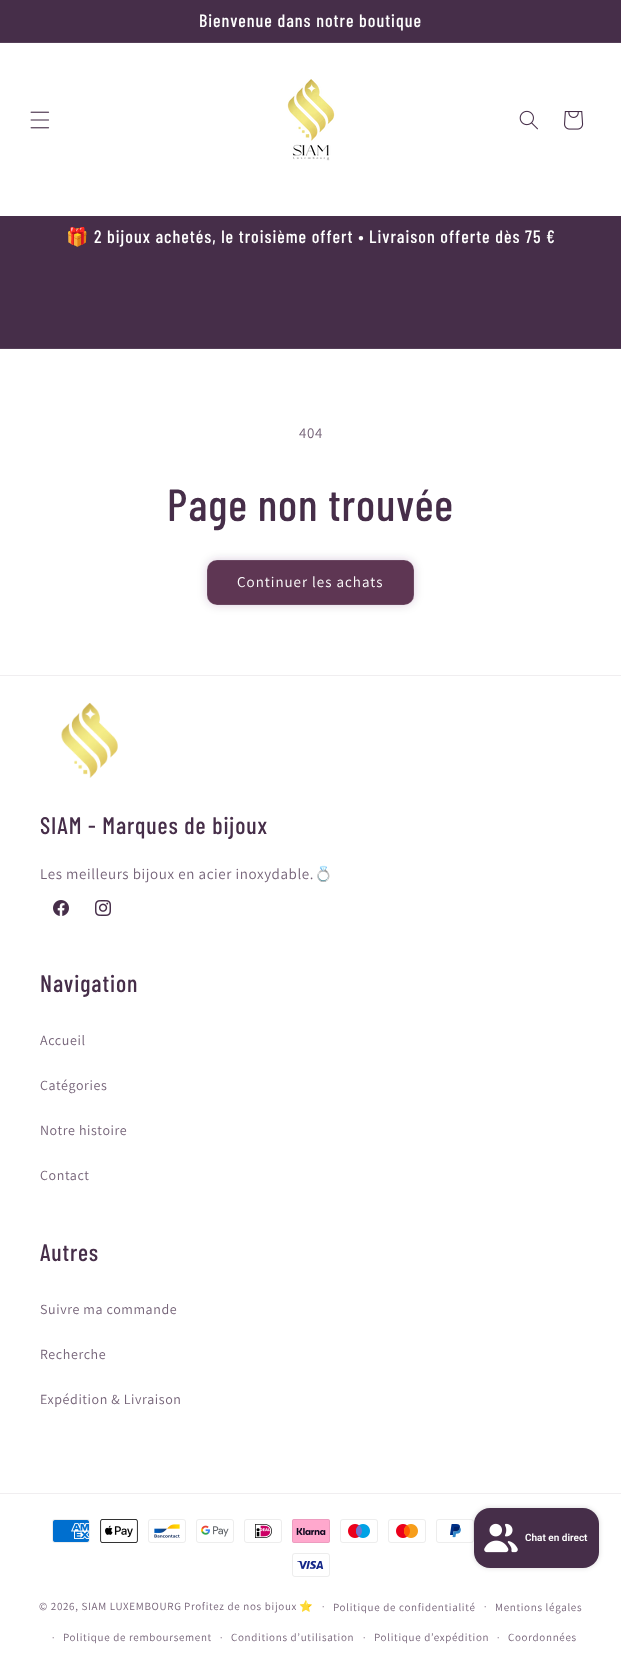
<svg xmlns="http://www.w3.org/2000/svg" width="621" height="1653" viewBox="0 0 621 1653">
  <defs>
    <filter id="blur1" x="-50%" y="-200%" width="200%" height="500%"><feGaussianBlur stdDeviation="5"/></filter>
    <filter id="blur2" x="-50%" y="-200%" width="200%" height="500%"><feGaussianBlur stdDeviation="2.5"/></filter>
  </defs>
  <rect width="100%" height="100%" fill="#ffffff"/>
  <rect x="0" y="0" width="621" height="42" fill="#462e49"/>
  <rect x="0" y="42" width="621" height="1" fill="#553f58"/>
  <text x="199" y="27" font-family="Barlow Condensed" font-size="18" font-weight="500" letter-spacing="1" fill="#ffffff">Bienvenue dans notre boutique</text>
  <image x="30" y="111" width="20" height="18" href="img1.png"/>
  <image x="287" y="79" width="48" height="82" href="img2.png"/>
  <image x="519" y="110" width="19" height="20" href="img3.png"/>
  <image x="564" y="111" width="20" height="19" href="img4.png"/>
  <rect x="0" y="216" width="621" height="132" fill="#462e49"/>
  <rect x="0" y="348" width="621" height="1" fill="#553f58"/>
  <text x="66" y="243" font-family="Noto Color Emoji" font-size="18" letter-spacing="1" fill="#ffffff">🎁</text>
  <text x="94" y="243" font-family="Barlow Condensed" font-size="18" font-weight="500" letter-spacing="1" fill="#ffffff">2 bijoux achetés, le troisième offert • Livraison offerte dès 75 €</text>
  <text x="299" y="438" font-family="Assistant" font-size="15" letter-spacing="0.6" fill="#746277">404</text>
  <text x="167" y="521" font-family="Barlow Condensed" font-size="45" font-weight="500" letter-spacing="0.9" fill="#462e49">Page non trouvée</text>
  <rect x="207" y="560" width="207" height="45" rx="10" fill="#462e49" fill-opacity="0.2" filter="url(#blur1)"/>
  <rect x="207" y="560" width="207" height="45" rx="10" fill="#5e3653"/>
  <rect x="207.15" y="560.15" width="206.7" height="44.7" rx="9.85" fill="none" stroke="#ffffff" stroke-opacity="0.45" stroke-width="0.3"/>
  <text x="237" y="587" font-family="Assistant" font-size="15" letter-spacing="1" fill="#ffffff">Continuer les achats</text>
  <rect x="0" y="675" width="621" height="1" fill="#f0eef0"/>
  <image x="61" y="702" width="57" height="76" href="img5.png"/>
  <text x="40" y="834" font-family="Barlow Condensed" font-size="24" font-weight="500" letter-spacing="0.9" fill="#462e49">SIAM - Marques de bijoux</text>
  <text x="40" y="879" font-family="Assistant" font-size="15" letter-spacing="0.6" fill="#746277">Les meilleurs bijoux en acier inoxydable.</text>
  <text x="314" y="879" font-family="Noto Color Emoji" font-size="15" letter-spacing="0.6" fill="#746277">💍</text>
  <image x="53" y="900" width="16" height="16" href="img6.png"/>
  <image x="95" y="900" width="16" height="16" href="img7.png"/>
  <text x="40" y="992" font-family="Barlow Condensed" font-size="24" font-weight="500" letter-spacing="0.9" fill="#462e49">Navigation</text>
  <text x="40" y="1045" font-family="Assistant" font-size="14" letter-spacing="0.6" fill="#746277">Accueil</text>
  <text x="40" y="1090" font-family="Assistant" font-size="14" letter-spacing="0.6" fill="#746277">Catégories</text>
  <text x="40" y="1135" font-family="Assistant" font-size="14" letter-spacing="0.6" fill="#746277">Notre histoire</text>
  <text x="40" y="1180" font-family="Assistant" font-size="14" letter-spacing="0.6" fill="#746277">Contact</text>
  <text x="40" y="1261" font-family="Barlow Condensed" font-size="24" font-weight="500" letter-spacing="0.9" fill="#462e49">Autres</text>
  <text x="40" y="1314" font-family="Assistant" font-size="14" letter-spacing="0.6" fill="#746277">Suivre ma commande</text>
  <text x="40" y="1359" font-family="Assistant" font-size="14" letter-spacing="0.6" fill="#746277">Recherche</text>
  <text x="40" y="1404" font-family="Assistant" font-size="14" letter-spacing="0.6" fill="#746277">Expédition &amp; Livraison</text>
  <rect x="0" y="1493" width="621" height="1" fill="#f0eef0"/>
  <image x="52" y="1519" width="38" height="24" href="img8.png"/>
  <image x="100" y="1519" width="38" height="24" href="img9.png"/>
  <image x="148" y="1519" width="38" height="24" href="img10.png"/>
  <image x="196" y="1519" width="38" height="24" href="img11.png"/>
  <image x="244" y="1519" width="38" height="24" href="img12.png"/>
  <image x="292" y="1519" width="38" height="24" href="img13.png"/>
  <image x="340" y="1519" width="38" height="24" href="img14.png"/>
  <image x="388" y="1519" width="38" height="24" href="img15.png"/>
  <image x="436" y="1519" width="38" height="24" href="img16.png"/>
  <image x="292" y="1553" width="38" height="24" href="img17.png"/>
  <text x="39" y="1610" font-family="Assistant" font-size="11" letter-spacing="0.7" fill="#746277">© 2026, SIAM LUXEMBOURG</text>
  <text x="299" y="1610" font-family="Noto Color Emoji" font-size="11" letter-spacing="0.7" fill="#746277">⭐️</text>
  <text x="322" y="1610" font-family="Assistant" font-size="10" letter-spacing="0.7" fill="#746277">·</text>
  <text x="333" y="1611" font-family="Assistant" font-size="11" letter-spacing="0.7" fill="#746277">Politique de confidentialité</text>
  <text x="484" y="1610" font-family="Assistant" font-size="10" letter-spacing="0.7" fill="#746277">·</text>
  <text x="495" y="1611" font-family="Assistant" font-size="11" letter-spacing="0.7" fill="#746277">Mentions légales</text>
  <text x="52" y="1641" font-family="Assistant" font-size="10" letter-spacing="0.7" fill="#746277">·</text>
  <text x="63" y="1641" font-family="Assistant" font-size="11" letter-spacing="0.7" fill="#746277">Politique de remboursement</text>
  <text x="220" y="1641" font-family="Assistant" font-size="10" letter-spacing="0.7" fill="#746277">·</text>
  <text x="231" y="1641" font-family="Assistant" font-size="11" letter-spacing="0.7" fill="#746277">Conditions d’utilisation</text>
  <text x="363" y="1641" font-family="Assistant" font-size="10" letter-spacing="0.7" fill="#746277">·</text>
  <text x="374" y="1641" font-family="Assistant" font-size="11" letter-spacing="0.7" fill="#746277">Politique d’expédition</text>
  <text x="497" y="1641" font-family="Assistant" font-size="10" letter-spacing="0.7" fill="#746277">·</text>
  <text x="508" y="1641" font-family="Assistant" font-size="11" letter-spacing="0.7" fill="#746277">Coordonnées</text>
  <text x="184" y="1610" font-family="Assistant" font-size="11" letter-spacing="0.7" fill="#746277">Profitez de nos bijoux</text>
  <rect x="474" y="1508" width="125" height="60" rx="16" fill="#000000" fill-opacity="0.15" filter="url(#blur2)"/>
  <rect x="474" y="1508" width="125" height="60" rx="16" fill="#462e49"/>
  <image x="484" y="1523" width="34" height="30" href="img18.png"/>
  <text x="525" y="1541" font-family="Roboto" font-size="10" font-weight="600" fill="#ffffff">Chat en direct</text>
</svg>
